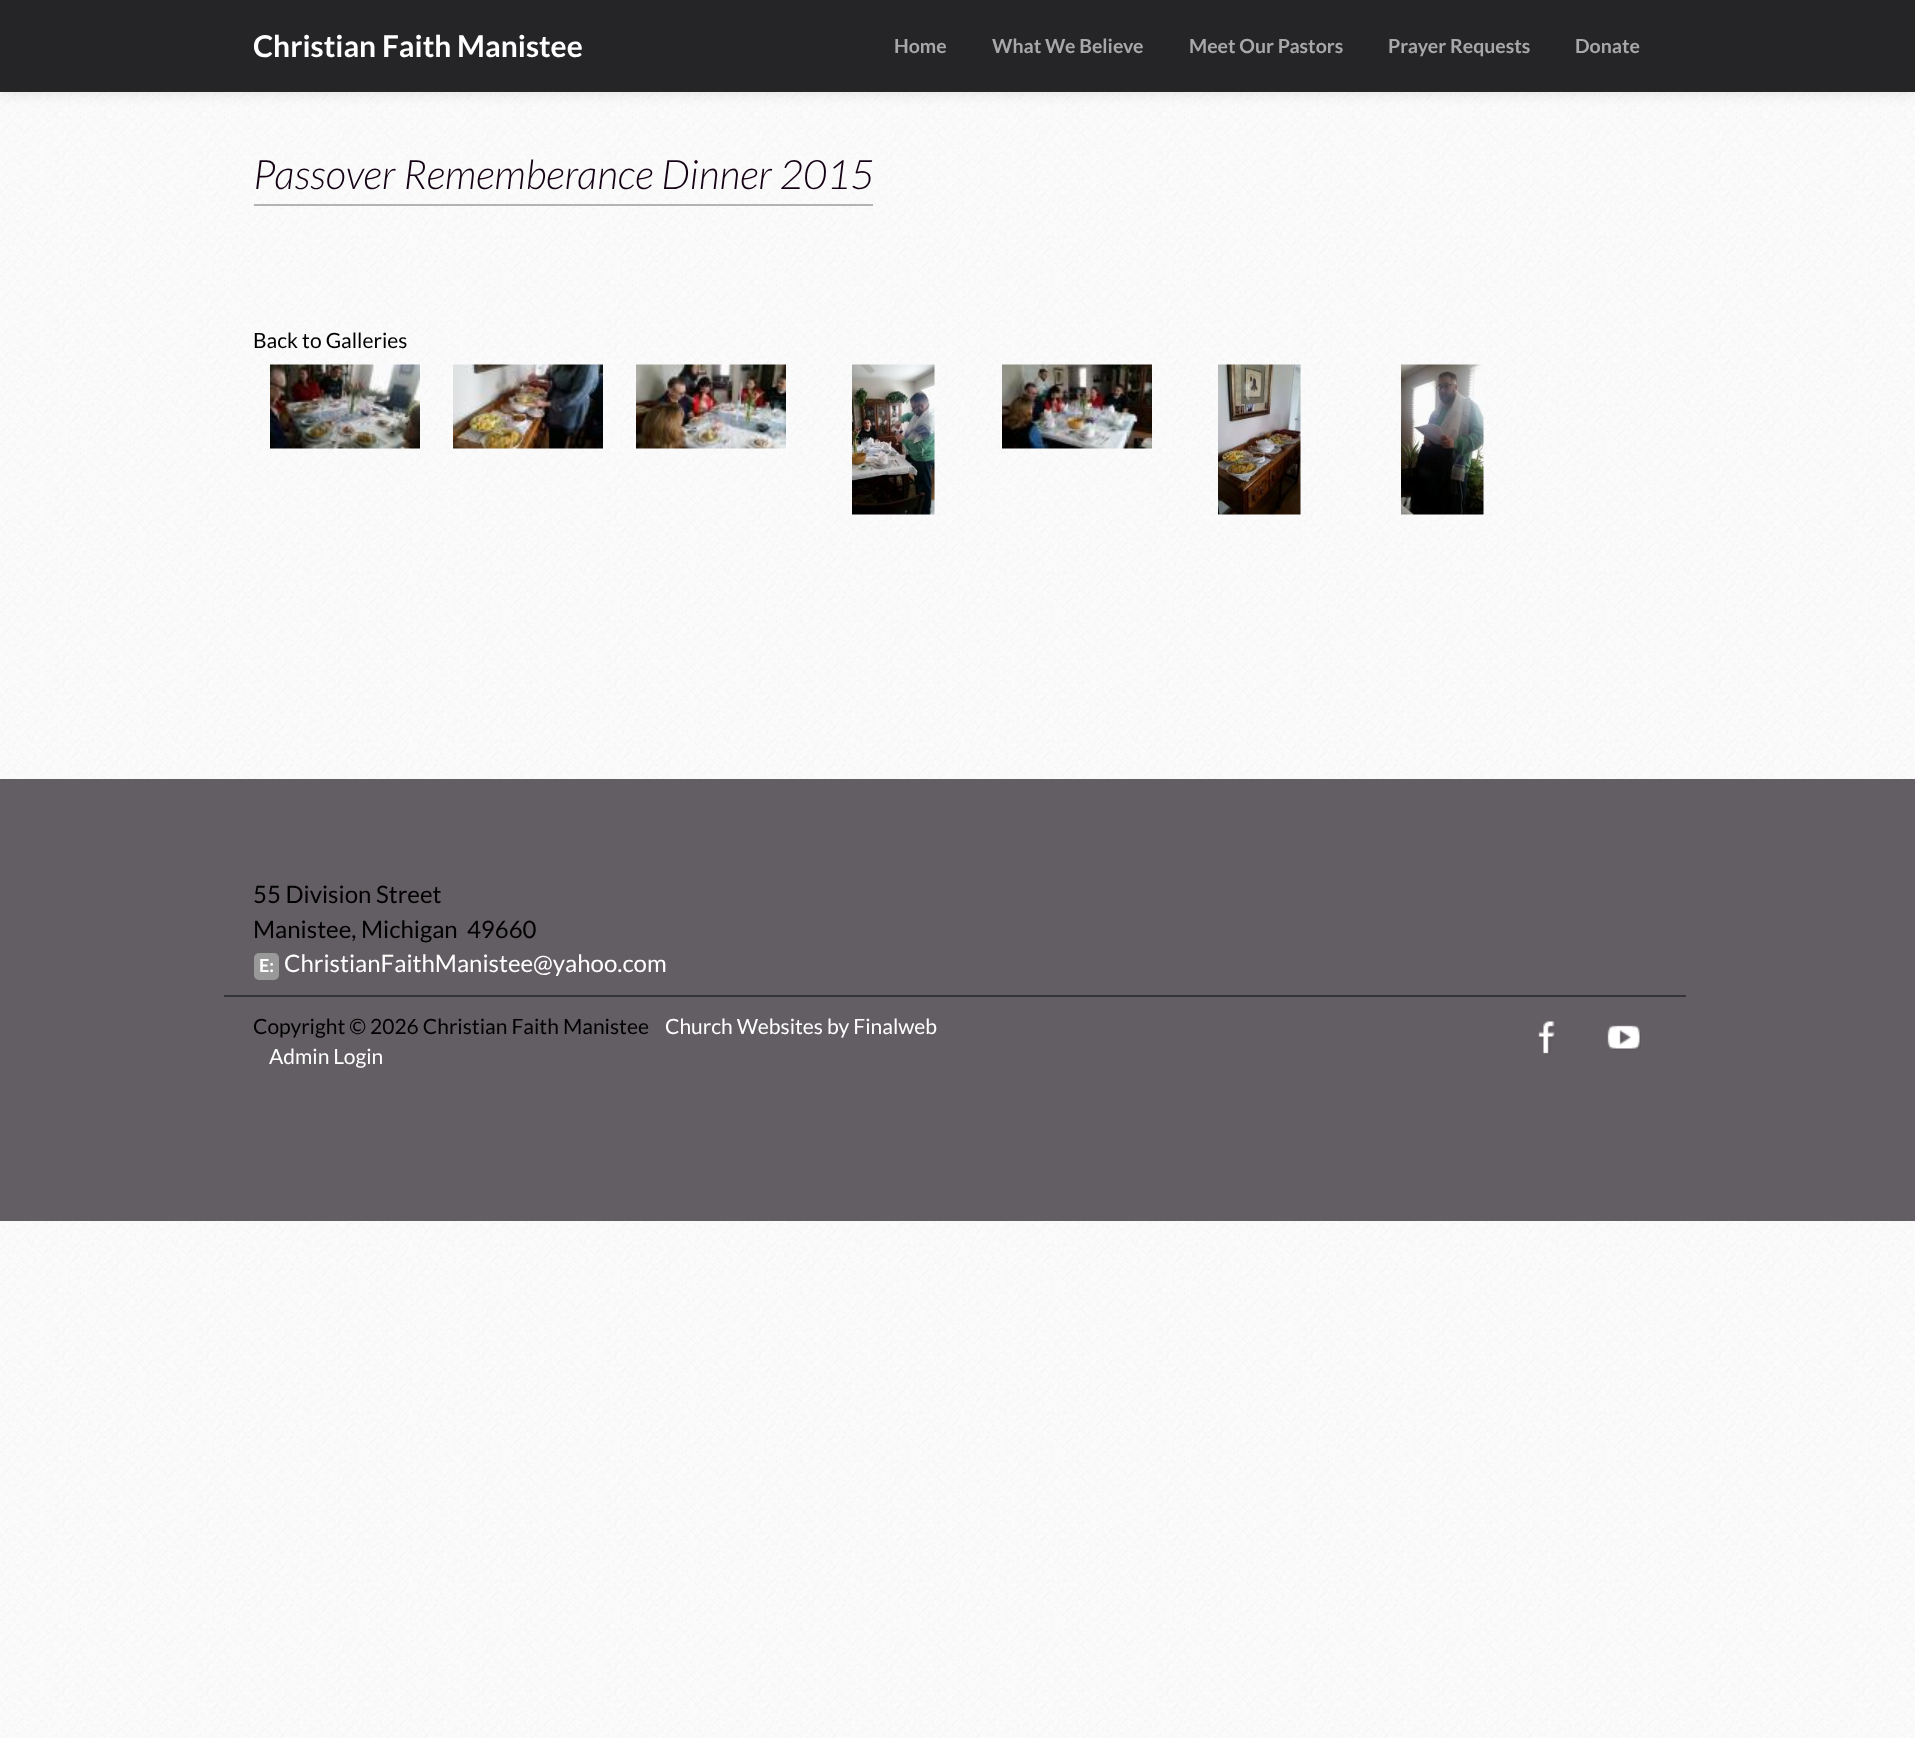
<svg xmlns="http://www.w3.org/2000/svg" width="1915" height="1738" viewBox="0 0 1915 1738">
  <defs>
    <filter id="blur1" x="-50%" y="-200%" width="200%" height="500%"><feGaussianBlur stdDeviation="7.5"/></filter>
  </defs>
  <rect width="100%" height="100%" fill="#ffffff"/>
  <image x="0" y="92" width="1915" height="1646" href="img1.png"/>
  <rect x="0" y="2" width="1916" height="91" fill="#000000" fill-opacity="0.1" filter="url(#blur1)"/>
  <rect x="0" y="0" width="1915" height="90" fill="#252528"/>
  <rect x="0" y="90" width="1915" height="2" fill="#252525"/>
  <text x="253" y="57" font-family="Lato" font-size="30" font-weight="bold" fill="#ffffff">Christian Faith Manistee</text>
  <text x="894" y="53" font-family="Lato" font-size="19.5" font-weight="bold" fill="#a8a8a9">Home</text>
  <text x="992" y="53" font-family="Lato" font-size="19.5" font-weight="bold" fill="#a8a8a9">What We Believe</text>
  <text x="1189" y="53" font-family="Lato" font-size="19.5" font-weight="bold" fill="#a8a8a9">Meet Our Pastors</text>
  <text x="1388" y="53" font-family="Lato" font-size="19.5" font-weight="bold" fill="#a8a8a9">Prayer Requests</text>
  <text x="1575" y="53" font-family="Lato" font-size="19.5" font-weight="bold" fill="#a8a8a9">Donate</text>
  <rect x="254" y="204" width="619" height="2" fill="#b3b3b3"/>
  <text x="253" y="189" font-family="Lato" font-size="40.5" font-weight="300" font-style="italic" fill="#140114">Passover Rememberance Dinner 2015</text>
  <text x="253" y="348" font-family="Lato" font-size="21" fill="#000000">Back to Galleries</text>
  <image x="270" y="364" width="150" height="85" href="img2.png"/>
  <image x="453" y="364" width="150" height="85" href="img3.png"/>
  <image x="636" y="364" width="150" height="85" href="img4.png"/>
  <image x="852" y="364" width="83" height="151" href="img5.png"/>
  <image x="1002" y="364" width="150" height="85" href="img6.png"/>
  <image x="1218" y="364" width="83" height="151" href="img7.png"/>
  <image x="1401" y="364" width="83" height="151" href="img8.png"/>
  <rect x="0" y="779" width="1915" height="442" fill="#635e63"/>
  <text x="253" y="903" font-family="Lato" font-size="24" fill="#000000">55 Division Street</text>
  <text x="253" y="938" font-family="Lato" font-size="24" fill="#000000" xml:space="preserve">Manistee, Michigan  49660</text>
  <rect x="254" y="953" width="25" height="27" rx="5" fill="#999999"/>
  <text x="259" y="972" font-family="Lato" font-size="18" font-weight="bold" fill="#ffffff">E:</text>
  <text x="284" y="972" font-family="Lato" font-size="24" fill="#ffffff">ChristianFaithManistee@yahoo.com</text>
  <rect x="224" y="995" width="1462" height="2" fill="#343437"/>
  <text x="253" y="1034" font-family="Lato" font-size="21" fill="#000000">Copyright © 2026 Christian Faith Manistee</text>
  <text x="665" y="1034" font-family="Lato" font-size="21" fill="#ffffff">Church Websites by Finalweb</text>
  <text x="269" y="1064" font-family="Lato" font-size="21" fill="#ffffff">Admin Login</text>
  <image x="1538" y="1021" width="17" height="34" href="img9.png"/>
  <image x="1607" y="1025" width="34" height="25" href="img10.png"/>
</svg>
